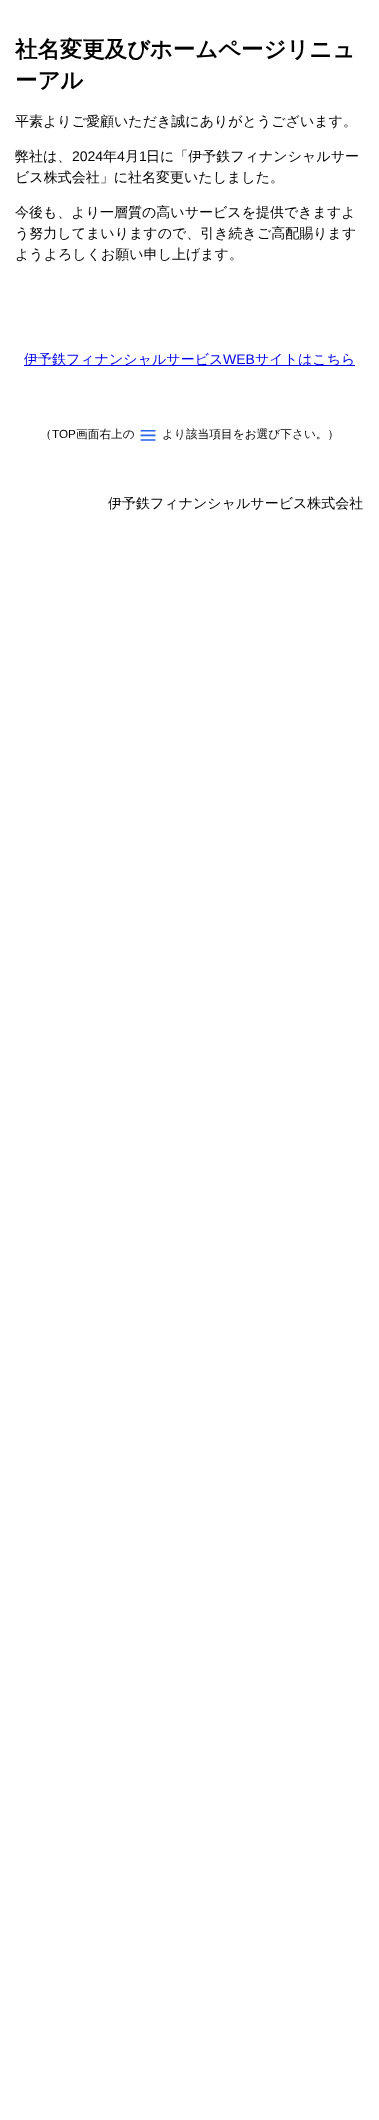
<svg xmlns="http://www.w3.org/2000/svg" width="379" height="2120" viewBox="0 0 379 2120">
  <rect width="100%" height="100%" fill="#ffffff"/>
  <text x="15" y="57" font-family="WenQuanYi Zen Hei" font-size="22.4" font-weight="bold" fill="#000000">社名変更及びホームページリニュ</text>
  <text x="15" y="88" font-family="WenQuanYi Zen Hei" font-size="22.4" font-weight="bold" fill="#000000">ーアル</text>
  <text x="15" y="126" font-family="WenQuanYi Zen Hei" font-size="14" font-weight="500" fill="#000000">平素よりご愛顧いただき誠にありがとうございます。</text>
  <text x="15" y="161" font-family="WenQuanYi Zen Hei" font-size="14" font-weight="500" fill="#000000">弊社は、</text>
  <text x="72" y="161" font-family="Liberation Sans" font-size="14" fill="#000000">2024</text>
  <text x="103" y="161" font-family="WenQuanYi Zen Hei" font-size="14" font-weight="500" fill="#000000">年</text>
  <text x="117" y="161" font-family="Liberation Sans" font-size="14" fill="#000000">4</text>
  <text x="125" y="161" font-family="WenQuanYi Zen Hei" font-size="14" font-weight="500" fill="#000000">月</text>
  <text x="139" y="161" font-family="Liberation Sans" font-size="14" fill="#000000">1</text>
  <text x="146" y="161" font-family="WenQuanYi Zen Hei" font-size="14" font-weight="500" fill="#000000">日に「伊予鉄フィナンシャルサー</text>
  <text x="15" y="182" font-family="WenQuanYi Zen Hei" font-size="14" font-weight="500" fill="#000000">ビス株式会社」に社名変更いたしました。</text>
  <text x="15" y="217" font-family="WenQuanYi Zen Hei" font-size="14" font-weight="500" fill="#000000">今後も、より一層質の高いサービスを提供できますよ</text>
  <text x="15" y="238" font-family="WenQuanYi Zen Hei" font-size="14" font-weight="500" fill="#000000">う努力してまいりますので、引き続きご高配賜ります</text>
  <text x="15" y="259" font-family="WenQuanYi Zen Hei" font-size="14" font-weight="500" fill="#000000">ようよろしくお願い申し上げます。</text>
  <rect x="24" y="365" width="331" height="1" fill="#0000ee"/>
  <text x="24" y="364" font-family="WenQuanYi Zen Hei" font-size="14" font-weight="500" fill="#0000ee">伊予鉄フィナンシャルサービス</text>
  <text x="223" y="364" font-family="Liberation Sans" font-size="14" fill="#0000ee">WEB</text>
  <text x="255" y="364" font-family="WenQuanYi Zen Hei" font-size="14" font-weight="500" fill="#0000ee">サイトはこちら</text>
  <text x="40" y="438" font-family="WenQuanYi Zen Hei" font-size="11.7" font-weight="500" fill="#000000">（</text>
  <text x="52" y="438" font-family="Liberation Sans" font-size="11.7" fill="#000000">TOP</text>
  <text x="76" y="438" font-family="WenQuanYi Zen Hei" font-size="11.7" font-weight="500" fill="#000000">画面右上の</text>
  <text x="139" y="446" font-family="Liberation Serif" font-size="32" fill="#2864f0">≡</text>
  <text x="162" y="438" font-family="WenQuanYi Zen Hei" font-size="11.7" font-weight="500" fill="#000000">より該当項目をお選び下さい。）</text>
  <text x="108" y="508" font-family="WenQuanYi Zen Hei" font-size="14" font-weight="500" fill="#000000">伊予鉄フィナンシャルサービス株式会社</text>
</svg>
